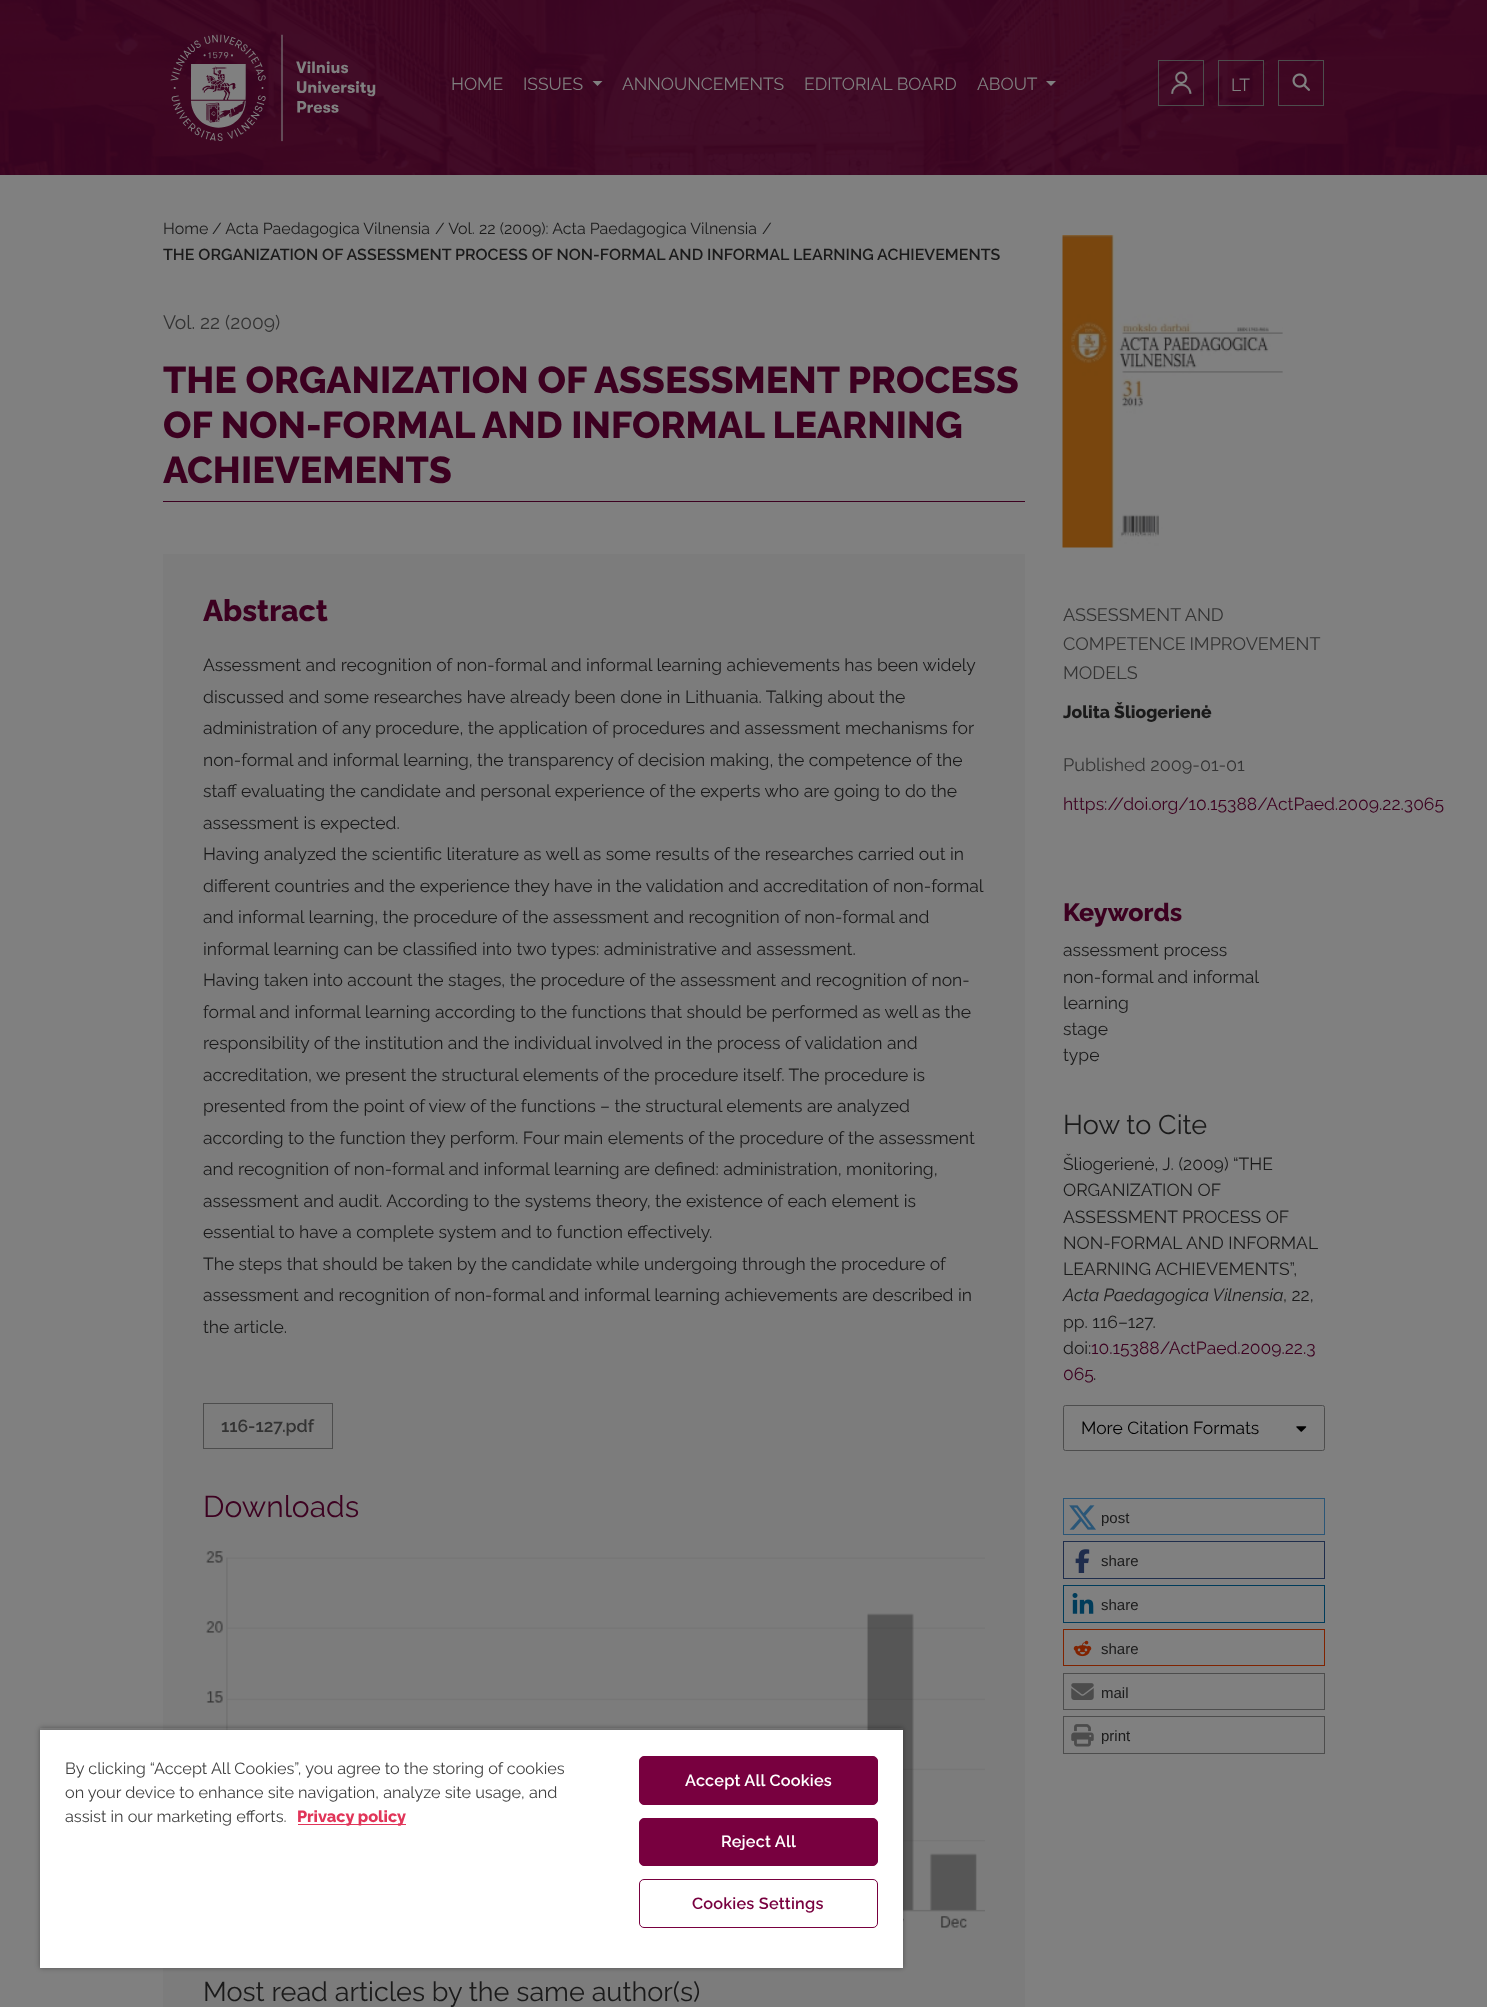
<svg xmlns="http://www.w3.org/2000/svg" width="1487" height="2007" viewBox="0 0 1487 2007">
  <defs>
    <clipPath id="clip1"><path d="M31 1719H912V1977H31ZM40 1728H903V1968H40Z" clip-rule="evenodd"/></clipPath>
    <filter id="blur1" x="-50%" y="-200%" width="200%" height="500%"><feGaussianBlur stdDeviation="2.5"/></filter>
    <clipPath id="clip2"><rect x="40" y="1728" width="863" height="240"/></clipPath>
  </defs>
  <rect width="100%" height="100%" fill="#808080"/>
  <image x="0" y="0" width="1487" height="175" href="img1.png"/>
  <image x="170" y="34" width="206" height="108" href="img2.png"/>
  <text x="451" y="90" font-family="Raleway" font-size="17.5" fill="#808080">HOME</text>
  <text x="523" y="90" font-family="Raleway" font-size="17.5" fill="#808080">ISSUES</text>
  <path d="M592.5 81H602.5L597.5 86Z" fill="#808080"/>
  <text x="622" y="90" font-family="Raleway" font-size="17.5" fill="#808080">ANNOUNCEMENTS</text>
  <text x="804" y="90" font-family="Raleway" font-size="17.5" fill="#808080">EDITORIAL BOARD</text>
  <text x="977" y="90" font-family="Raleway" font-size="17.5" fill="#808080">ABOUT</text>
  <path d="M1046 81H1056L1051 86Z" fill="#808080"/>
  <image x="1171" y="71" width="21" height="23" href="img3.png"/>
  <rect x="1158.5" y="60.5" width="45" height="45" fill="none" stroke="#4d4d4d"/>
  <rect x="1218.5" y="60.5" width="45" height="45" fill="none" stroke="#4d4d4d"/>
  <text x="1231" y="91" font-family="Raleway" font-size="17.5" fill="#808080">LT</text>
  <rect x="1278.5" y="60.5" width="45" height="45" fill="none" stroke="#4d4d4d"/>
  <image x="1292" y="73" width="18" height="18" href="img4.png"/>
  <text x="163" y="234" font-family="Raleway" font-size="16" fill="#1a1a1a">Home</text>
  <text x="212" y="234" font-family="Raleway" font-size="16" fill="#1a1a1a">/ Acta Paedagogica Vilnensia</text>
  <text x="435" y="234" font-family="Raleway" font-size="16" fill="#1a1a1a">/ Vol. 22 (2009): Acta Paedagogica Vilnensia</text>
  <text x="762" y="234" font-family="Raleway" font-size="16" fill="#1a1a1a">/</text>
  <text x="163" y="260" font-family="Raleway" font-size="16" font-weight="600" fill="#1a1a1a">THE ORGANIZATION OF ASSESSMENT PROCESS OF NON-FORMAL AND INFORMAL LEARNING ACHIEVEMENTS</text>
  <text x="163" y="329" font-family="Raleway" font-size="19.25" fill="#333333">Vol. 22 (2009)</text>
  <text x="163" y="393" font-family="Raleway" font-size="37.5" font-weight="800" fill="#3c0020">THE ORGANIZATION OF ASSESSMENT PROCESS</text>
  <text x="163" y="438" font-family="Raleway" font-size="37.5" font-weight="800" fill="#3c0020">OF NON-FORMAL AND INFORMAL LEARNING</text>
  <text x="163" y="483" font-family="Raleway" font-size="37.5" font-weight="800" fill="#3c0020">ACHIEVEMENTS</text>
  <rect x="163" y="501" width="862" height="1" fill="#3c0020"/>
  <rect x="163" y="554" width="862" height="1453" fill="#7c7c7c"/>
  <text x="203" y="621" font-family="Raleway" font-size="30" font-weight="800" fill="#3c0020">Abstract</text>
  <text x="203" y="671" font-family="Raleway" font-size="17.5" fill="#1a1a1a">Assessment and recognition of non-formal and informal learning achievements has been widely</text>
  <text x="203" y="703" font-family="Raleway" font-size="17.5" fill="#1a1a1a">discussed and some researches have already been done in Lithuania. Talking about the</text>
  <text x="203" y="734" font-family="Raleway" font-size="17.5" fill="#1a1a1a">administration of any procedure, the application of procedures and assessment mechanisms for</text>
  <text x="203" y="766" font-family="Raleway" font-size="17.5" fill="#1a1a1a">non-formal and informal learning, the transparency of decision making, the competence of the</text>
  <text x="203" y="797" font-family="Raleway" font-size="17.5" fill="#1a1a1a">staff evaluating the candidate and personal experience of the experts who are going to do the</text>
  <text x="203" y="829" font-family="Raleway" font-size="17.5" fill="#1a1a1a">assessment is expected.</text>
  <text x="203" y="860" font-family="Raleway" font-size="17.5" fill="#1a1a1a">Having analyzed the scientific literature as well as some results of the researches carried out in</text>
  <text x="203" y="892" font-family="Raleway" font-size="17.5" fill="#1a1a1a">different countries and the experience they have in the validation and accreditation of non-formal</text>
  <text x="203" y="923" font-family="Raleway" font-size="17.5" fill="#1a1a1a">and informal learning, the procedure of the assessment and recognition of non-formal and</text>
  <text x="203" y="955" font-family="Raleway" font-size="17.5" fill="#1a1a1a">informal learning can be classified into two types: administrative and assessment.</text>
  <text x="203" y="986" font-family="Raleway" font-size="17.5" fill="#1a1a1a">Having taken into account the stages, the procedure of the assessment and recognition of non-</text>
  <text x="203" y="1018" font-family="Raleway" font-size="17.5" fill="#1a1a1a">formal and informal learning according to the functions that should be performed as well as the</text>
  <text x="203" y="1049" font-family="Raleway" font-size="17.5" fill="#1a1a1a">responsibility of the institution and the individual involved in the process of validation and</text>
  <text x="203" y="1081" font-family="Raleway" font-size="17.5" fill="#1a1a1a">accreditation, we present the structural elements of the procedure itself. The procedure is</text>
  <text x="203" y="1112" font-family="Raleway" font-size="17.5" fill="#1a1a1a">presented from the point of view of the functions – the structural elements are analyzed</text>
  <text x="203" y="1144" font-family="Raleway" font-size="17.5" fill="#1a1a1a">according to the function they perform. Four main elements of the procedure of the assessment</text>
  <text x="203" y="1175" font-family="Raleway" font-size="17.5" fill="#1a1a1a">and recognition of non-formal and informal learning are defined: administration, monitoring,</text>
  <text x="203" y="1207" font-family="Raleway" font-size="17.5" fill="#1a1a1a">assessment and audit. According to the systems theory, the existence of each element is</text>
  <text x="203" y="1238" font-family="Raleway" font-size="17.5" fill="#1a1a1a">essential to have a complete system and to function effectively.</text>
  <text x="203" y="1270" font-family="Raleway" font-size="17.5" fill="#1a1a1a">The steps that should be taken by the candidate while undergoing through the procedure of</text>
  <text x="203" y="1301" font-family="Raleway" font-size="17.5" fill="#1a1a1a">assessment and recognition of non-formal and informal learning achievements are described in</text>
  <text x="203" y="1333" font-family="Raleway" font-size="17.5" fill="#1a1a1a">the article.</text>
  <rect x="203.5" y="1403.5" width="129" height="45" fill="none" stroke="#4d4d4d"/>
  <text x="221" y="1432" font-family="Raleway" font-size="17.5" font-weight="600" fill="#333333">116-127.pdf</text>
  <text x="203" y="1517" font-family="Raleway" font-size="30" fill="#3c0020">Downloads</text>
  <image x="206" y="1551" width="779" height="377" href="img5.png"/>
  <text x="203" y="2001" font-family="Raleway" font-size="27" fill="#1a1a1a">Most read articles by the same author(s)</text>
  <image x="1062" y="235" width="221" height="313" href="img6.png"/>
  <text x="1063" y="621" font-family="Raleway" font-size="18" fill="#333333">ASSESSMENT AND</text>
  <text x="1063" y="650" word-spacing="-1" font-family="Raleway" font-size="18" fill="#333333">COMPETENCE IMPROVEMENT</text>
  <text x="1063" y="679" font-family="Raleway" font-size="18" fill="#333333">MODELS</text>
  <text x="1063" y="718" font-family="Raleway" font-size="17.5" font-weight="800" fill="#1a1a1a">Jolita Šliogerienė</text>
  <text x="1063" y="771" font-family="Raleway" font-size="18" fill="#333333">Published 2009-01-01</text>
  <text x="1063" y="810" font-family="Raleway" font-size="17.5" fill="#3c0020">https://doi.org/10.15388/ActPaed.2009.22.3065</text>
  <text x="1063" y="921" font-family="Raleway" font-size="25" font-weight="800" fill="#3c0020">Keywords</text>
  <text x="1063" y="956" font-family="Raleway" font-size="17.5" fill="#1a1a1a">assessment process</text>
  <text x="1063" y="983" font-family="Raleway" font-size="17.5" fill="#1a1a1a">non-formal and informal</text>
  <text x="1063" y="1009" font-family="Raleway" font-size="17.5" fill="#1a1a1a">learning</text>
  <text x="1063" y="1035" font-family="Raleway" font-size="17.5" fill="#1a1a1a">stage</text>
  <text x="1063" y="1061" font-family="Raleway" font-size="17.5" fill="#1a1a1a">type</text>
  <text x="1063" y="1134" font-family="Raleway" font-size="27" fill="#1a1a1a">How to Cite</text>
  <text x="1063" y="1170" font-family="Raleway" font-size="17.5" fill="#1a1a1a">Šliogerienė, J. (2009) “THE</text>
  <text x="1063" y="1196" font-family="Raleway" font-size="17.5" fill="#1a1a1a">ORGANIZATION OF</text>
  <text x="1063" y="1223" font-family="Raleway" font-size="17.5" fill="#1a1a1a">ASSESSMENT PROCESS OF</text>
  <text x="1063" y="1249" font-family="Raleway" font-size="17.5" fill="#1a1a1a">NON-FORMAL AND INFORMAL</text>
  <text x="1063" y="1275" font-family="Raleway" font-size="17.5" fill="#1a1a1a">LEARNING ACHIEVEMENTS”,</text>
  <text x="1063" y="1301" font-family="Raleway" font-size="17.5" font-weight="100" font-style="italic" fill="#1a1a1a">Acta Paedagogica Vilnensia</text>
  <text x="1283" y="1301" font-family="Raleway" font-size="17.5" fill="#1a1a1a">, 22,</text>
  <text x="1063" y="1328" font-family="Raleway" font-size="17.5" fill="#1a1a1a">pp. 116–127.</text>
  <text x="1063" y="1354" font-family="Raleway" font-size="17.5" fill="#1a1a1a">doi:</text>
  <text x="1091" y="1354" font-family="Raleway" font-size="17.5" fill="#3c0020">10.15388/ActPaed.2009.22.3</text>
  <text x="1063" y="1380" font-family="Raleway" font-size="17.5" fill="#3c0020">065</text>
  <text x="1093" y="1380" font-family="Raleway" font-size="17.5" fill="#1a1a1a">.</text>
  <rect x="1063.5" y="1405.5" width="261" height="45" rx="2" fill="none" stroke="#4d4d4d"/>
  <text x="1081" y="1434" font-family="Raleway" font-size="17.5" fill="#000000">More Citation Formats</text>
  <image x="1296" y="1426" width="11" height="6" href="img7.png"/>
  <rect x="1063.5" y="1498.5" width="261" height="36" fill="none" stroke="#2b5677"/>
  <image x="1069" y="1505" width="27" height="25" href="img8.png"/>
  <text x="1101" y="1523" font-family="Liberation Sans" font-size="15" fill="#1a1a1a">post</text>
  <rect x="1063.5" y="1541.5" width="261" height="37" fill="none" stroke="#1e2d4c"/>
  <image x="1075" y="1549" width="15" height="24" href="img9.png"/>
  <text x="1101" y="1566" font-family="Liberation Sans" font-size="15" fill="#1a1a1a">share</text>
  <rect x="1063.5" y="1585.5" width="261" height="37" fill="none" stroke="#003c5b"/>
  <image x="1072" y="1593" width="22" height="21" href="img10.png"/>
  <text x="1101" y="1610" font-family="Liberation Sans" font-size="15" fill="#1a1a1a">share</text>
  <rect x="1063.5" y="1629.5" width="261" height="36" fill="none" stroke="#802300"/>
  <image x="1073" y="1640" width="19" height="17" href="img11.png"/>
  <text x="1101" y="1654" font-family="Liberation Sans" font-size="15" fill="#1a1a1a">share</text>
  <rect x="1063.5" y="1673.5" width="261" height="36" fill="none" stroke="#4d4d4d"/>
  <image x="1071" y="1683" width="23" height="17" href="img12.png"/>
  <text x="1101" y="1698" font-family="Liberation Sans" font-size="15" fill="#1a1a1a">mail</text>
  <rect x="1063.5" y="1716.5" width="261" height="37" fill="none" stroke="#4d4d4d"/>
  <image x="1071" y="1724" width="23" height="23" href="img13.png"/>
  <text x="1101" y="1741" font-family="Liberation Sans" font-size="15" fill="#1a1a1a">print</text>
  <g clip-path="url(#clip1)">
    <rect x="40" y="1728" width="863" height="240" fill="#000000" fill-opacity="0.35" filter="url(#blur1)"/>
  </g>
  <g clip-path="url(#clip2)">
    <rect x="40" y="1730" width="863" height="238" fill="#000000" fill-opacity="0.2" filter="url(#blur1)"/>
  </g>
  <rect x="40" y="1730" width="863" height="238" fill="#ffffff"/>
  <text x="65" y="1774" font-family="Raleway" font-size="16.25" fill="#414141">By clicking “Accept All Cookies”, you agree to the storing of cookies</text>
  <text x="65" y="1798" font-family="Raleway" font-size="16.25" fill="#414141">on your device to enhance site navigation, analyze site usage, and</text>
  <text x="65" y="1822" font-family="Raleway" font-size="16.25" fill="#414141">assist in our marketing efforts.</text>
  <rect x="298" y="1824" width="108" height="1" fill="#e13559"/>
  <text x="297" y="1822" font-family="Raleway" font-size="16.25" font-weight="800" fill="#e13559">Privacy policy</text>
  <rect x="639.5" y="1756.5" width="238" height="48" rx="4.5" fill="#78003f" stroke="#78003f"/>
  <text x="685" y="1786" font-family="Raleway" font-size="16.25" font-weight="600" letter-spacing="0.2" fill="#ffffff">Accept All Cookies</text>
  <rect x="639.5" y="1818.5" width="238" height="47" rx="4.5" fill="#78003f" stroke="#78003f"/>
  <text x="721" y="1847" font-family="Raleway" font-size="16.25" font-weight="600" letter-spacing="0.2" fill="#ffffff">Reject All</text>
  <rect x="639.5" y="1879.5" width="238" height="48" rx="4.5" fill="none" stroke="#78003f"/>
  <text x="692" y="1909" font-family="Raleway" font-size="16.25" font-weight="600" letter-spacing="0.2" fill="#78003f">Cookies Settings</text>
</svg>
